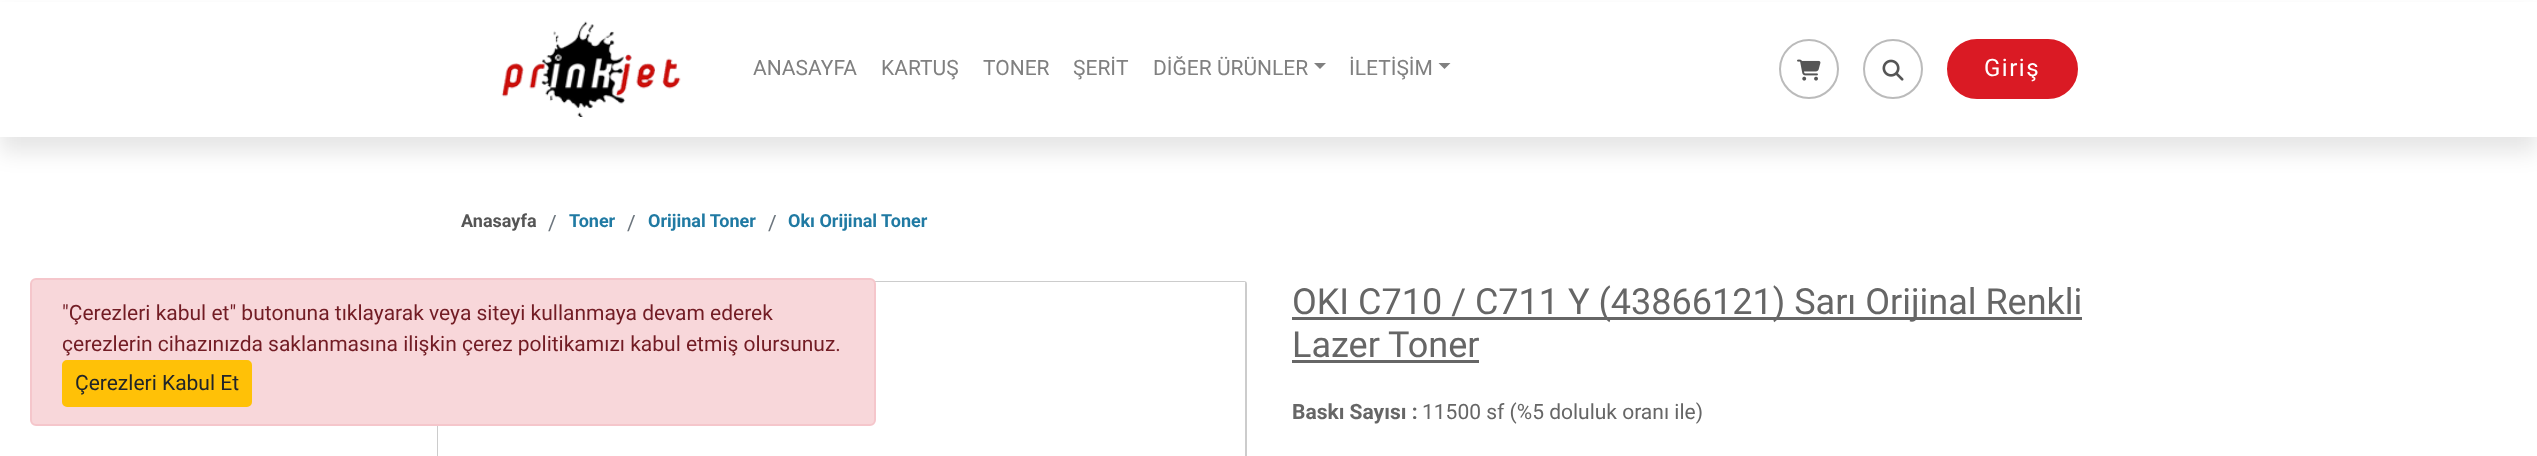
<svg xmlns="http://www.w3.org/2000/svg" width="2537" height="456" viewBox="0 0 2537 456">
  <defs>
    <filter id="blur1" x="-50%" y="-200%" width="200%" height="500%"><feGaussianBlur stdDeviation="11"/></filter>
  </defs>
  <rect width="100%" height="100%" fill="#ffffff"/>
  <rect x="0" y="15" width="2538" height="137" fill="#191919" fill-opacity="0.1" filter="url(#blur1)"/>
  <rect x="0" y="2" width="2537" height="135" fill="#ffffff"/>
  <image x="501" y="21" width="180" height="96" href="img1.png"/>
  <text x="753" y="75" font-family="Roboto" font-size="21" fill="#808080">ANASAYFA</text>
  <text x="881" y="75" font-family="Roboto" font-size="21" fill="#808080">KARTUŞ</text>
  <text x="983" y="75" font-family="Roboto" font-size="21" fill="#808080">TONER</text>
  <text x="1073" y="75" font-family="Roboto" font-size="21" fill="#808080">ŞERİT</text>
  <text x="1153" y="75" font-family="Roboto" font-size="21" fill="#808080">DİĞER ÜRÜNLER</text>
  <path d="M1314 63H1326L1320 69Z" fill="#808080"/>
  <text x="1349" y="75" font-family="Roboto" font-size="21" fill="#808080">İLETİŞİM</text>
  <path d="M1438.5 63H1450.5L1444.5 69Z" fill="#808080"/>
  <circle cx="1809" cy="69" r="29" fill="none" stroke="#bbbbbb" stroke-width="2"/>
  <image x="1797" y="59" width="24" height="22" href="img2.png"/>
  <circle cx="1893" cy="69" r="29" fill="none" stroke="#bbbbbb" stroke-width="2"/>
  <image x="1882" y="59" width="22" height="22" href="img3.png"/>
  <rect x="1948" y="40" width="129" height="58" rx="29" fill="#da1a24" stroke="#da1a24" stroke-width="2"/>
  <text x="1984" y="76" font-family="Roboto" font-size="24" letter-spacing="1.5" fill="#ffffff">Giriş</text>
  <rect x="438" y="282" width="808" height="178" rx="2" fill="none" stroke="#cccccc" stroke-width="2"/>
  <rect x="438" y="282" width="807" height="174" fill="#ffffff"/>
  <rect x="31" y="279" width="844" height="146" rx="5" fill="#f8d7da" stroke="#f5c6cb" stroke-width="2"/>
  <text x="62" y="320" font-family="Roboto" font-size="21" fill="#721c24">"Çerezleri kabul et" butonuna tıklayarak veya siteyi kullanmaya devam ederek</text>
  <text x="62" y="351" font-family="Roboto" font-size="21" fill="#721c24">çerezlerin cihazınızda saklanmasına ilişkin çerez politikamızı kabul etmiş olursunuz.</text>
  <rect x="63" y="361" width="188" height="45" rx="4" fill="#ffc107" stroke="#ffc107" stroke-width="2"/>
  <text x="75" y="390" font-family="Roboto" font-size="21" fill="#212529">Çerezleri Kabul Et</text>
  <text x="461" y="227" font-family="Roboto" font-size="18" font-weight="bold" fill="#555555">Anasayfa</text>
  <text x="548" y="230" font-family="Roboto" font-size="21" fill="#6c757d">/</text>
  <text x="569" y="227" font-family="Roboto" font-size="18" font-weight="bold" fill="#207aa3">Toner</text>
  <text x="627" y="230" font-family="Roboto" font-size="21" fill="#6c757d">/</text>
  <text x="648" y="227" font-family="Roboto" font-size="18" font-weight="bold" fill="#207aa3">Orijinal Toner</text>
  <text x="768" y="230" font-family="Roboto" font-size="21" fill="#6c757d">/</text>
  <text x="788" y="227" font-family="Roboto" font-size="18" font-weight="bold" fill="#207aa3">Okı Orijinal Toner</text>
  <rect x="1292" y="317" width="790" height="3" fill="#666666"/>
  <text x="1292" y="314" font-family="Roboto" font-size="36" fill="#666666">OKI C710 / C711 Y (43866121) Sarı Orijinal Renkli</text>
  <text x="1292" y="357" font-family="Roboto" font-size="36" fill="#666666">Lazer Toner</text>
  <rect x="1292" y="360" width="187" height="3" fill="#666666"/>
  <text x="1292" y="419" font-family="Roboto" font-size="21" font-weight="bold" fill="#666666">Baskı Sayısı :</text>
  <text x="1422" y="419" font-family="Roboto" font-size="21" fill="#666666">11500 sf (%5 doluluk oranı ile)</text>
</svg>
